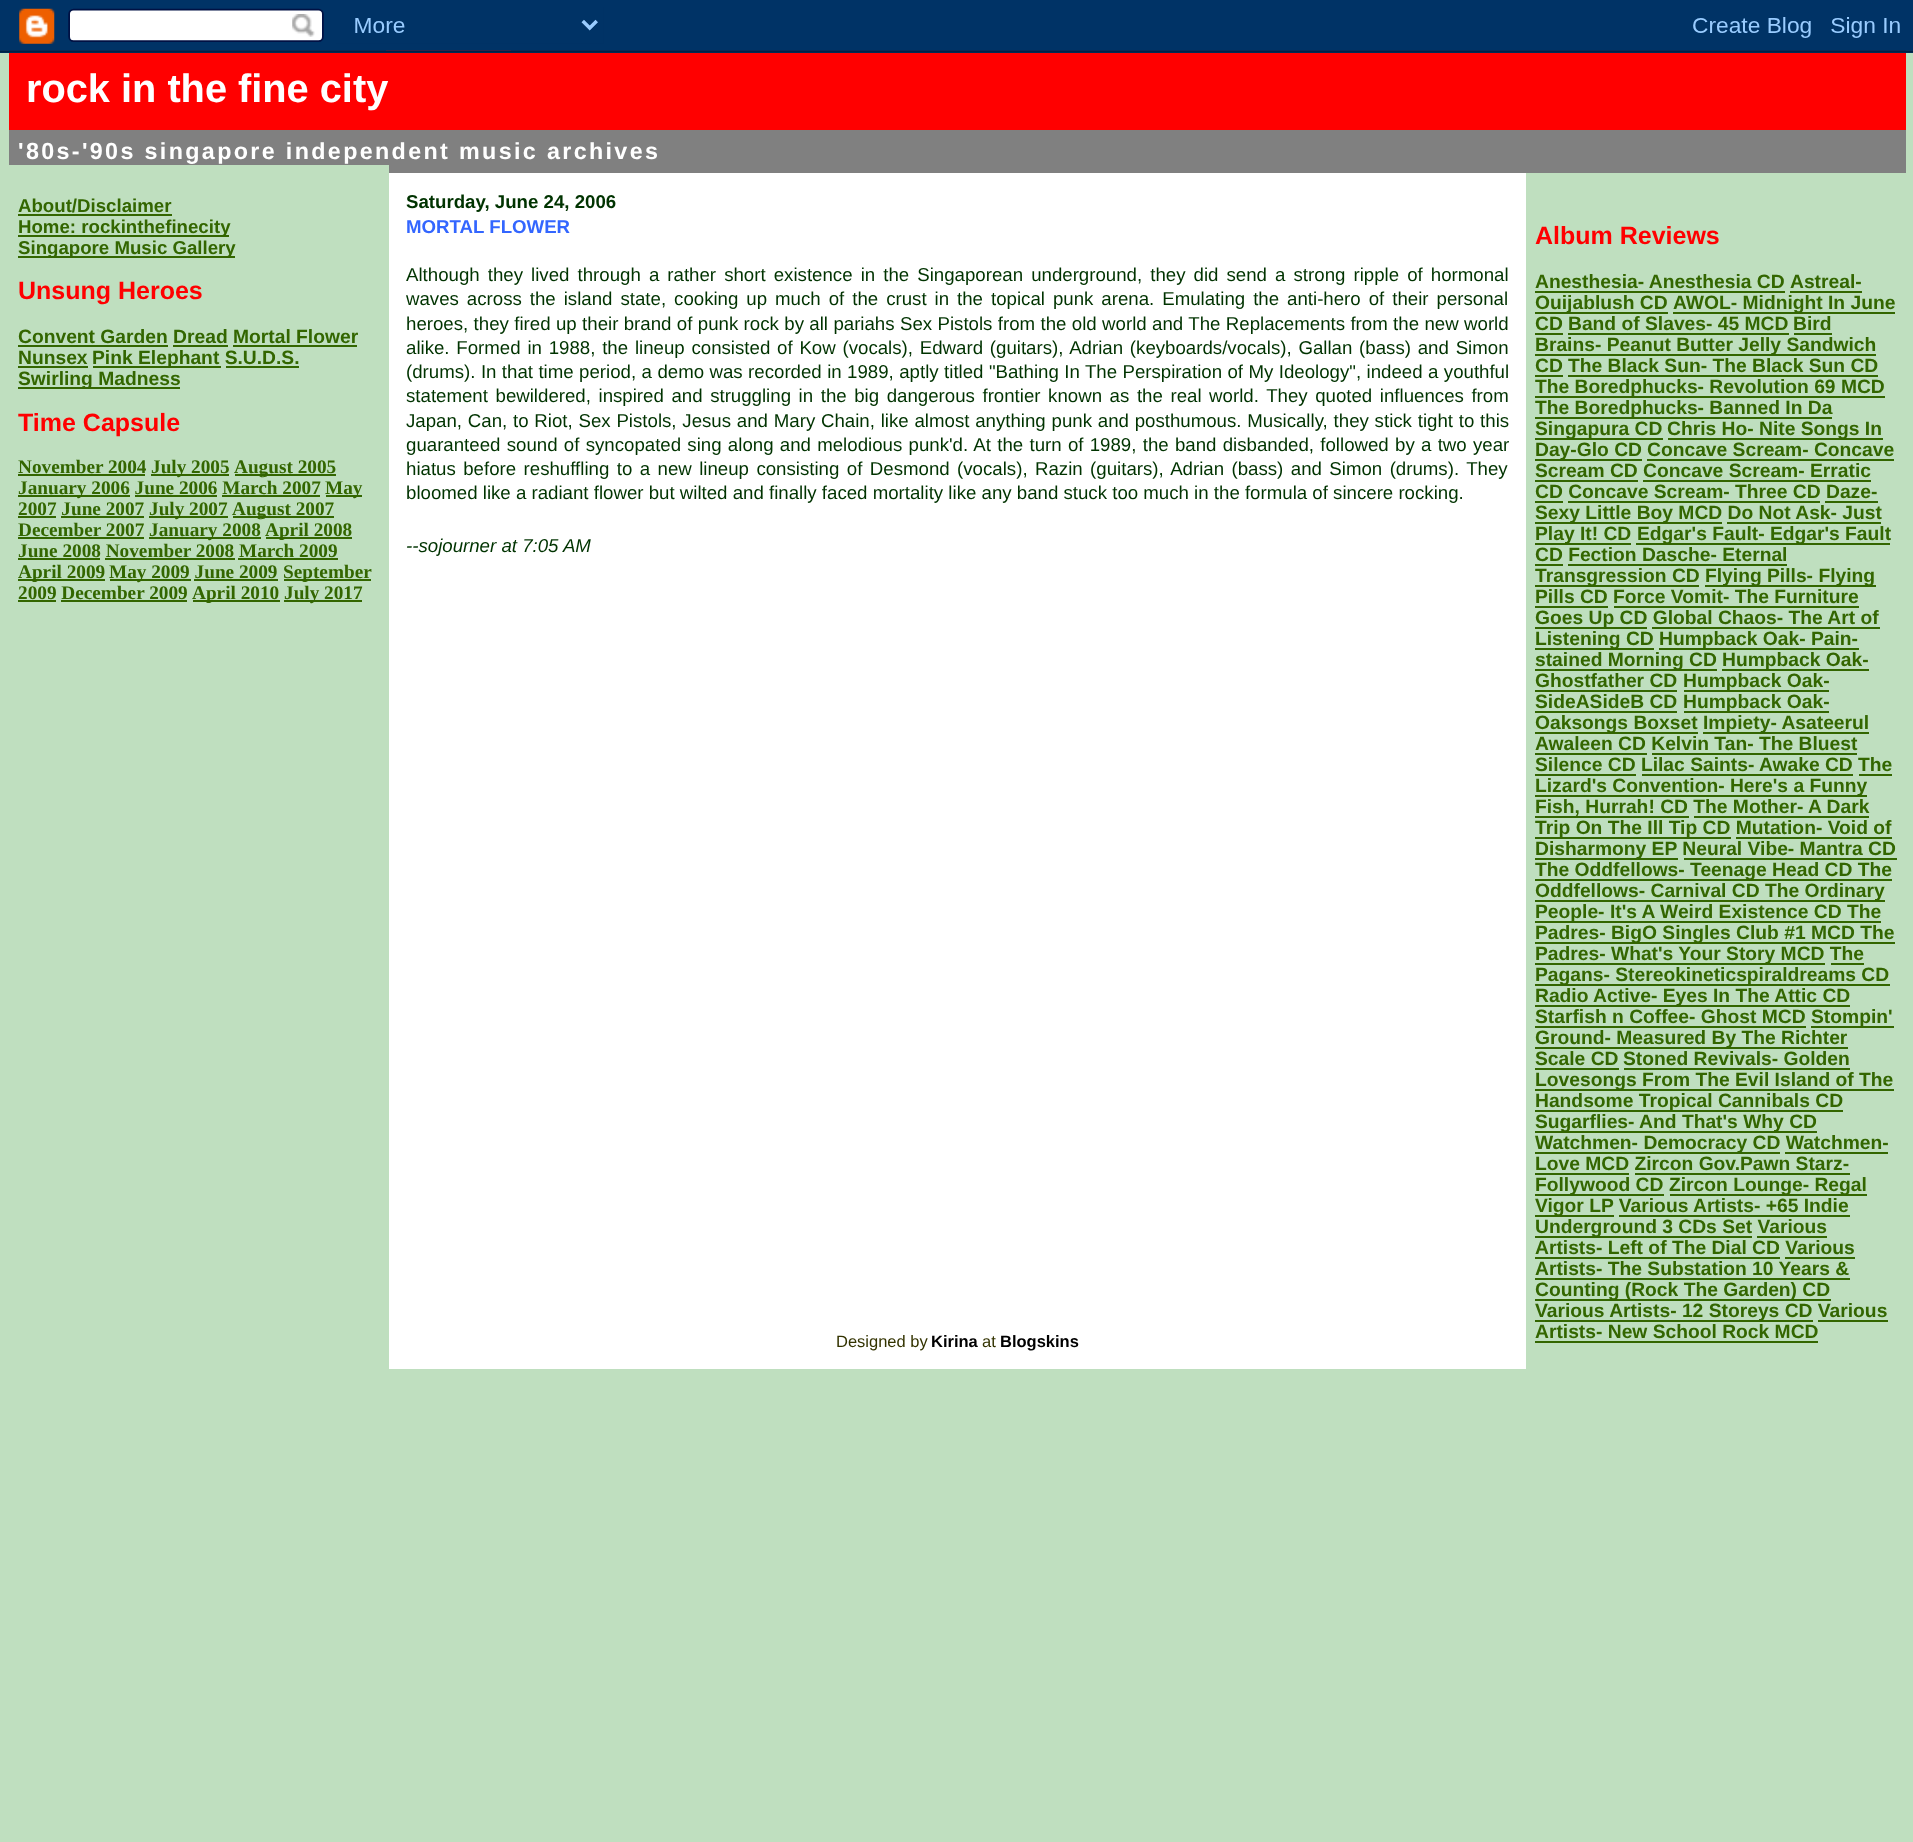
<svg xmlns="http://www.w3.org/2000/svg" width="1913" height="1842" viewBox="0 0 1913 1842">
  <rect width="100%" height="100%" fill="#bfdfbf"/>
  <rect x="9" y="50" width="1897" height="80" fill="#ff0000"/>
  <image x="0" y="0" width="1913" height="53" href="img1.png"/>
  <text x="26" y="102" font-family="Liberation Sans" font-size="39.75" font-weight="bold" fill="#ffffff">rock in the fine city</text>
  <rect x="9" y="130" width="1897" height="43" fill="#808080"/>
  <text x="18" y="159" font-family="Liberation Sans" font-size="23.3" font-weight="bold" letter-spacing="2.35" fill="#ffffff">'80s-'90s singapore independent music archives</text>
  <rect x="9" y="165" width="380" height="8" fill="#bfdfbf"/>
  <text x="18" y="212" font-family="Liberation Sans" font-size="18.67" font-weight="bold" fill="#336600">About/Disclaimer</text>
  <rect x="18" y="214" width="154" height="2" fill="#336600"/>
  <rect x="18" y="235" width="211" height="2" fill="#336600"/>
  <text x="18" y="233" font-family="Liberation Sans" font-size="18.67" font-weight="bold" fill="#336600">Home: rockinthefinecity</text>
  <rect x="18" y="256" width="217" height="2" fill="#336600"/>
  <text x="18" y="254" font-family="Liberation Sans" font-size="18.67" font-weight="bold" fill="#336600">Singapore Music Gallery</text>
  <text x="18" y="299" font-family="Liberation Sans" font-size="25" font-weight="bold" fill="#ff0000">Unsung Heroes</text>
  <text x="18" y="343" font-family="Liberation Sans" font-size="19.25" font-weight="bold" fill="#336600">Convent Garden Dread Mortal Flower</text>
  <rect x="18" y="345" width="150" height="2" fill="#336600"/>
  <rect x="173" y="345" width="55" height="2" fill="#336600"/>
  <rect x="233" y="345" width="124" height="2" fill="#336600"/>
  <text x="18" y="364" font-family="Liberation Sans" font-size="19.25" font-weight="bold" fill="#336600">Nunsex</text>
  <rect x="18" y="366" width="70" height="2" fill="#336600"/>
  <rect x="93" y="366" width="128" height="2" fill="#336600"/>
  <text x="92" y="364" font-family="Liberation Sans" font-size="19.25" font-weight="bold" fill="#336600">Pink Elephant S.U.D.S.</text>
  <rect x="226" y="366" width="73" height="2" fill="#336600"/>
  <rect x="18" y="387" width="162" height="2" fill="#336600"/>
  <text x="18" y="385" font-family="Liberation Sans" font-size="19.25" font-weight="bold" fill="#336600">Swirling Madness</text>
  <text x="18" y="431" font-family="Liberation Sans" font-size="25" font-weight="bold" fill="#ff0000">Time Capsule</text>
  <text x="18" y="473" font-family="Liberation Serif" font-size="19.25" font-weight="bold" fill="#336600">November 2004</text>
  <rect x="18" y="474" width="127" height="2" fill="#336600"/>
  <rect x="151" y="474" width="78" height="2" fill="#336600"/>
  <text x="151" y="473" font-family="Liberation Serif" font-size="19.25" font-weight="bold" fill="#336600">July 2005</text>
  <rect x="235" y="474" width="101" height="2" fill="#336600"/>
  <text x="234" y="473" font-family="Liberation Serif" font-size="19.25" font-weight="bold" fill="#336600">August 2005</text>
  <rect x="18" y="495" width="112" height="2" fill="#336600"/>
  <text x="18" y="494" font-family="Liberation Serif" font-size="19.25" font-weight="bold" fill="#336600">January 2006 June 2006 March 2007</text>
  <rect x="326" y="495" width="36" height="2" fill="#336600"/>
  <text x="325" y="494" font-family="Liberation Serif" font-size="19.25" font-weight="bold" fill="#336600">May</text>
  <rect x="135" y="495" width="82" height="2" fill="#336600"/>
  <rect x="222" y="495" width="98" height="2" fill="#336600"/>
  <text x="18" y="515" font-family="Liberation Serif" font-size="19.25" font-weight="bold" fill="#336600">2007 June 2007</text>
  <rect x="18" y="516" width="38" height="2" fill="#336600"/>
  <rect x="149" y="516" width="79" height="2" fill="#336600"/>
  <text x="149" y="515" font-family="Liberation Serif" font-size="19.25" font-weight="bold" fill="#336600">July 2007</text>
  <rect x="233" y="516" width="101" height="2" fill="#336600"/>
  <text x="232" y="515" font-family="Liberation Serif" font-size="19.25" font-weight="bold" fill="#336600">August 2007</text>
  <rect x="61" y="516" width="83" height="2" fill="#336600"/>
  <text x="18" y="536" font-family="Liberation Serif" font-size="19.25" font-weight="bold" fill="#336600">December 2007</text>
  <rect x="18" y="537" width="126" height="2" fill="#336600"/>
  <rect x="149" y="537" width="112" height="2" fill="#336600"/>
  <text x="149" y="536" font-family="Liberation Serif" font-size="19.25" font-weight="bold" fill="#336600">January 2008</text>
  <rect x="266" y="537" width="86" height="2" fill="#336600"/>
  <text x="265" y="536" font-family="Liberation Serif" font-size="19.25" font-weight="bold" fill="#336600">April 2008</text>
  <text x="18" y="557" font-family="Liberation Serif" font-size="19.25" font-weight="bold" fill="#336600">June 2008 November 2008 March 2009</text>
  <rect x="18" y="558" width="82" height="2" fill="#336600"/>
  <rect x="105" y="558" width="130" height="2" fill="#336600"/>
  <rect x="238" y="558" width="100" height="2" fill="#336600"/>
  <rect x="18" y="579" width="87" height="2" fill="#336600"/>
  <text x="18" y="578" font-family="Liberation Serif" font-size="19.25" font-weight="bold" fill="#336600">April 2009</text>
  <rect x="110" y="579" width="81" height="2" fill="#336600"/>
  <text x="109" y="578" font-family="Liberation Serif" font-size="19.25" font-weight="bold" fill="#336600">May 2009 June 2009</text>
  <rect x="284" y="579" width="87" height="2" fill="#336600"/>
  <text x="283" y="578" font-family="Liberation Serif" font-size="19.25" font-weight="bold" fill="#336600">September</text>
  <rect x="194" y="579" width="84" height="2" fill="#336600"/>
  <text x="18" y="599" font-family="Liberation Serif" font-size="19.25" font-weight="bold" fill="#336600">2009 December 2009</text>
  <rect x="18" y="600" width="38" height="2" fill="#336600"/>
  <rect x="193" y="600" width="87" height="2" fill="#336600"/>
  <text x="192" y="599" font-family="Liberation Serif" font-size="19.25" font-weight="bold" fill="#336600">April 2010</text>
  <rect x="284" y="600" width="78" height="2" fill="#336600"/>
  <text x="284" y="599" font-family="Liberation Serif" font-size="19.25" font-weight="bold" fill="#336600">July 2017</text>
  <rect x="61" y="600" width="126" height="2" fill="#336600"/>
  <rect x="389" y="173" width="1137" height="1196" fill="#ffffff"/>
  <text x="406" y="208" font-family="Liberation Sans" font-size="18.67" font-weight="bold" fill="#003300">Saturday, June 24, 2006</text>
  <text x="406" y="233" font-family="Liberation Sans" font-size="18.67" font-weight="bold" fill="#3366ff">MORTAL FLOWER</text>
  <text x="406" y="281" word-spacing="2.9" font-family="Liberation Sans" font-size="18.67" fill="#003300">Although they lived through a rather short existence in the Singaporean underground, they did send a strong ripple of hormonal</text>
  <text x="406" y="305" word-spacing="2.8" font-family="Liberation Sans" font-size="18.67" fill="#003300">waves across the island state, cooking up much of the crust in the topical punk arena. Emulating the anti-hero of their personal</text>
  <text x="406" y="330" word-spacing="0.2" font-family="Liberation Sans" font-size="18.67" fill="#003300">heroes, they fired up their brand of punk rock by all pariahs Sex Pistols from the old world and The Replacements from the new world</text>
  <text x="406" y="354" word-spacing="1.6" font-family="Liberation Sans" font-size="18.67" fill="#003300">alike. Formed in 1988, the lineup consisted of Kow (vocals), Edward (guitars), Adrian (keyboards/vocals), Gallan (bass) and Simon</text>
  <text x="406" y="378" word-spacing="0.25" font-family="Liberation Sans" font-size="18.67" fill="#003300">(drums). In that time period, a demo was recorded in 1989, aptly titled "Bathing In The Perspiration of My Ideology", indeed a youthful</text>
  <text x="406" y="402" word-spacing="2.4" font-family="Liberation Sans" font-size="18.67" fill="#003300">statement bewildered, inspired and struggling in the big dangerous frontier known as the real world. They quoted influences from</text>
  <text x="406" y="427" word-spacing="0.6" font-family="Liberation Sans" font-size="18.67" fill="#003300">Japan, Can, to Riot, Sex Pistols, Jesus and Mary Chain, like almost anything punk and posthumous. Musically, they stick tight to this</text>
  <text x="406" y="451" word-spacing="1.1" font-family="Liberation Sans" font-size="18.67" fill="#003300">guaranteed sound of syncopated sing along and melodious punk'd. At the turn of 1989, the band disbanded, followed by a two year</text>
  <text x="406" y="475" word-spacing="2.25" font-family="Liberation Sans" font-size="18.67" fill="#003300">hiatus before reshuffling to a new lineup consisting of Desmond (vocals), Razin (guitars), Adrian (bass) and Simon (drums). They</text>
  <text x="406" y="499" font-family="Liberation Sans" font-size="18.67" fill="#003300">bloomed like a radiant flower but wilted and finally faced mortality like any band stuck too much in the formula of sincere rocking.</text>
  <text x="406" y="552" font-family="Liberation Sans" font-size="18.67" font-style="italic" fill="#003300">--sojourner at 7:05 AM</text>
  <text x="1535" y="244" font-family="Liberation Sans" font-size="25" font-weight="bold" fill="#ff0000">Album Reviews</text>
  <text x="1535" y="288" font-family="Liberation Sans" font-size="19.25" font-weight="bold" fill="#336600">Anesthesia- Anesthesia CD</text>
  <rect x="1535" y="291" width="250" height="2" fill="#336600"/>
  <text x="1790" y="288" font-family="Liberation Sans" font-size="19.25" font-weight="bold" fill="#336600">Astreal-</text>
  <rect x="1790" y="291" width="72" height="2" fill="#336600"/>
  <rect x="1535" y="312" width="133" height="2" fill="#336600"/>
  <text x="1535" y="309" font-family="Liberation Sans" font-size="19.25" font-weight="bold" fill="#336600">Ouijablush CD</text>
  <rect x="1673" y="312" width="222" height="2" fill="#336600"/>
  <text x="1673" y="309" font-family="Liberation Sans" font-size="19.25" font-weight="bold" fill="#336600">AWOL- Midnight In June</text>
  <text x="1535" y="330" font-family="Liberation Sans" font-size="19.25" font-weight="bold" fill="#336600">CD</text>
  <rect x="1535" y="333" width="28" height="2" fill="#336600"/>
  <text x="1568" y="330" font-family="Liberation Sans" font-size="19.25" font-weight="bold" fill="#336600">Band of Slaves- 45 MCD</text>
  <rect x="1568" y="333" width="221" height="2" fill="#336600"/>
  <text x="1793" y="330" font-family="Liberation Sans" font-size="19.25" font-weight="bold" fill="#336600">Bird</text>
  <rect x="1794" y="333" width="38" height="2" fill="#336600"/>
  <rect x="1535" y="354" width="341" height="2" fill="#336600"/>
  <text x="1535" y="351" font-family="Liberation Sans" font-size="19.25" font-weight="bold" fill="#336600">Brains- Peanut Butter Jelly Sandwich</text>
  <text x="1535" y="372" font-family="Liberation Sans" font-size="19.25" font-weight="bold" fill="#336600">CD</text>
  <rect x="1535" y="375" width="28" height="2" fill="#336600"/>
  <text x="1568" y="372" font-family="Liberation Sans" font-size="19.25" font-weight="bold" fill="#336600">The Black Sun- The Black Sun CD</text>
  <rect x="1568" y="375" width="310" height="2" fill="#336600"/>
  <rect x="1535" y="396" width="350" height="2" fill="#336600"/>
  <text x="1535" y="393" font-family="Liberation Sans" font-size="19.25" font-weight="bold" fill="#336600">The Boredphucks- Revolution 69 MCD</text>
  <rect x="1535" y="417" width="297" height="2" fill="#336600"/>
  <text x="1535" y="414" font-family="Liberation Sans" font-size="19.25" font-weight="bold" fill="#336600">The Boredphucks- Banned In Da</text>
  <rect x="1535" y="438" width="128" height="2" fill="#336600"/>
  <text x="1535" y="435" font-family="Liberation Sans" font-size="19.25" font-weight="bold" fill="#336600">Singapura CD</text>
  <rect x="1668" y="438" width="215" height="2" fill="#336600"/>
  <text x="1667" y="435" font-family="Liberation Sans" font-size="19.25" font-weight="bold" fill="#336600">Chris Ho- Nite Songs In</text>
  <rect x="1535" y="459" width="107" height="2" fill="#336600"/>
  <text x="1535" y="456" font-family="Liberation Sans" font-size="19.25" font-weight="bold" fill="#336600">Day-Glo CD</text>
  <text x="1647" y="456" font-family="Liberation Sans" font-size="19.25" font-weight="bold" fill="#336600">Concave Scream- Concave</text>
  <rect x="1647" y="459" width="247" height="2" fill="#336600"/>
  <text x="1535" y="477" font-family="Liberation Sans" font-size="19.25" font-weight="bold" fill="#336600">Scream CD Concave Scream- Erratic</text>
  <rect x="1535" y="480" width="103" height="2" fill="#336600"/>
  <text x="1535" y="498" font-family="Liberation Sans" font-size="19.25" font-weight="bold" fill="#336600">CD Concave Scream- Three CD Daze-</text>
  <rect x="1643" y="480" width="228" height="2" fill="#336600"/>
  <rect x="1535" y="501" width="28" height="2" fill="#336600"/>
  <rect x="1568" y="501" width="252" height="2" fill="#336600"/>
  <rect x="1535" y="522" width="187" height="2" fill="#336600"/>
  <text x="1535" y="519" font-family="Liberation Sans" font-size="19.25" font-weight="bold" fill="#336600">Sexy Little Boy MCD Do Not Ask- Just</text>
  <rect x="1825" y="501" width="53" height="2" fill="#336600"/>
  <rect x="1535" y="543" width="96" height="2" fill="#336600"/>
  <text x="1535" y="540" font-family="Liberation Sans" font-size="19.25" font-weight="bold" fill="#336600">Play It! CD</text>
  <rect x="1727" y="522" width="154" height="2" fill="#336600"/>
  <rect x="1636" y="543" width="254" height="2" fill="#336600"/>
  <text x="1637" y="540" font-family="Liberation Sans" font-size="19.25" font-weight="bold" fill="#336600">Edgar's Fault- Edgar's Fault</text>
  <text x="1535" y="561" font-family="Liberation Sans" font-size="19.25" font-weight="bold" fill="#336600">CD Fection Dasche- Eternal</text>
  <rect x="1535" y="564" width="28" height="2" fill="#336600"/>
  <rect x="1535" y="585" width="164" height="2" fill="#336600"/>
  <text x="1535" y="582" font-family="Liberation Sans" font-size="19.25" font-weight="bold" fill="#336600">Transgression CD</text>
  <rect x="1568" y="564" width="219" height="2" fill="#336600"/>
  <rect x="1705" y="585" width="171" height="2" fill="#336600"/>
  <text x="1705" y="582" font-family="Liberation Sans" font-size="19.25" font-weight="bold" fill="#336600">Flying Pills- Flying</text>
  <text x="1535" y="603" font-family="Liberation Sans" font-size="19.25" font-weight="bold" fill="#336600">Pills CD Force Vomit- The Furniture</text>
  <rect x="1535" y="606" width="73" height="2" fill="#336600"/>
  <rect x="1535" y="627" width="112" height="2" fill="#336600"/>
  <text x="1535" y="624" font-family="Liberation Sans" font-size="19.25" font-weight="bold" fill="#336600">Goes Up CD Global Chaos- The Art of</text>
  <rect x="1614" y="606" width="245" height="2" fill="#336600"/>
  <rect x="1535" y="648" width="119" height="2" fill="#336600"/>
  <text x="1535" y="645" font-family="Liberation Sans" font-size="19.25" font-weight="bold" fill="#336600">Listening CD</text>
  <rect x="1652" y="627" width="228" height="2" fill="#336600"/>
  <rect x="1659" y="648" width="200" height="2" fill="#336600"/>
  <text x="1659" y="645" font-family="Liberation Sans" font-size="19.25" font-weight="bold" fill="#336600">Humpback Oak- Pain-</text>
  <rect x="1535" y="669" width="182" height="2" fill="#336600"/>
  <text x="1535" y="666" font-family="Liberation Sans" font-size="19.25" font-weight="bold" fill="#336600">stained Morning CD</text>
  <rect x="1722" y="669" width="147" height="2" fill="#336600"/>
  <text x="1722" y="666" font-family="Liberation Sans" font-size="19.25" font-weight="bold" fill="#336600">Humpback Oak-</text>
  <text x="1535" y="687" font-family="Liberation Sans" font-size="19.25" font-weight="bold" fill="#336600">Ghostfather CD</text>
  <rect x="1535" y="690" width="142" height="2" fill="#336600"/>
  <rect x="1684" y="690" width="145" height="2" fill="#336600"/>
  <text x="1683" y="687" font-family="Liberation Sans" font-size="19.25" font-weight="bold" fill="#336600">Humpback Oak-</text>
  <text x="1535" y="708" font-family="Liberation Sans" font-size="19.25" font-weight="bold" fill="#336600">SideASideB CD</text>
  <rect x="1535" y="711" width="142" height="2" fill="#336600"/>
  <rect x="1684" y="711" width="145" height="2" fill="#336600"/>
  <text x="1683" y="708" font-family="Liberation Sans" font-size="19.25" font-weight="bold" fill="#336600">Humpback Oak-</text>
  <rect x="1535" y="732" width="163" height="2" fill="#336600"/>
  <text x="1535" y="729" font-family="Liberation Sans" font-size="19.25" font-weight="bold" fill="#336600">Oaksongs Boxset</text>
  <rect x="1703" y="732" width="166" height="2" fill="#336600"/>
  <text x="1703" y="729" font-family="Liberation Sans" font-size="19.25" font-weight="bold" fill="#336600">Impiety- Asateerul</text>
  <text x="1535" y="750" font-family="Liberation Sans" font-size="19.25" font-weight="bold" fill="#336600">Awaleen CD Kelvin Tan- The Bluest</text>
  <rect x="1535" y="753" width="112" height="2" fill="#336600"/>
  <text x="1535" y="771" font-family="Liberation Sans" font-size="19.25" font-weight="bold" fill="#336600">Silence CD Lilac Saints- Awake CD The</text>
  <rect x="1652" y="753" width="205" height="2" fill="#336600"/>
  <rect x="1535" y="774" width="101" height="2" fill="#336600"/>
  <rect x="1642" y="774" width="211" height="2" fill="#336600"/>
  <rect x="1535" y="795" width="332" height="2" fill="#336600"/>
  <text x="1535" y="792" font-family="Liberation Sans" font-size="19.25" font-weight="bold" fill="#336600">Lizard's Convention- Here's a Funny</text>
  <rect x="1859" y="774" width="33" height="2" fill="#336600"/>
  <text x="1535" y="813" font-family="Liberation Sans" font-size="19.25" font-weight="bold" fill="#336600">Fish, Hurrah! CD The Mother- A Dark</text>
  <rect x="1535" y="816" width="154" height="2" fill="#336600"/>
  <rect x="1535" y="837" width="196" height="2" fill="#336600"/>
  <text x="1535" y="834" font-family="Liberation Sans" font-size="19.25" font-weight="bold" fill="#336600">Trip On The Ill Tip CD Mutation- Void of</text>
  <rect x="1694" y="816" width="175" height="2" fill="#336600"/>
  <rect x="1535" y="858" width="143" height="2" fill="#336600"/>
  <text x="1535" y="855" font-family="Liberation Sans" font-size="19.25" font-weight="bold" fill="#336600">Disharmony EP Neural Vibe- Mantra CD</text>
  <rect x="1736" y="837" width="156" height="2" fill="#336600"/>
  <rect x="1684" y="858" width="213" height="2" fill="#336600"/>
  <rect x="1535" y="879" width="357" height="2" fill="#336600"/>
  <text x="1535" y="876" font-family="Liberation Sans" font-size="19.25" font-weight="bold" fill="#336600">The Oddfellows- Teenage Head CD The</text>
  <rect x="1535" y="900" width="350" height="2" fill="#336600"/>
  <text x="1535" y="897" font-family="Liberation Sans" font-size="19.25" font-weight="bold" fill="#336600">Oddfellows- Carnival CD The Ordinary</text>
  <rect x="1535" y="921" width="346" height="2" fill="#336600"/>
  <text x="1535" y="918" font-family="Liberation Sans" font-size="19.25" font-weight="bold" fill="#336600">People- It's A Weird Existence CD The</text>
  <rect x="1535" y="942" width="360" height="2" fill="#336600"/>
  <text x="1535" y="939" font-family="Liberation Sans" font-size="19.25" font-weight="bold" fill="#336600">Padres- BigO Singles Club #1 MCD The</text>
  <rect x="1535" y="963" width="290" height="2" fill="#336600"/>
  <text x="1535" y="960" font-family="Liberation Sans" font-size="19.25" font-weight="bold" fill="#336600">Padres- What's Your Story MCD The</text>
  <rect x="1535" y="984" width="355" height="2" fill="#336600"/>
  <text x="1535" y="981" font-family="Liberation Sans" font-size="19.25" font-weight="bold" fill="#336600">Pagans- Stereokineticspiraldreams CD</text>
  <rect x="1831" y="963" width="33" height="2" fill="#336600"/>
  <rect x="1535" y="1005" width="315" height="2" fill="#336600"/>
  <text x="1535" y="1002" font-family="Liberation Sans" font-size="19.25" font-weight="bold" fill="#336600">Radio Active- Eyes In The Attic CD</text>
  <text x="1535" y="1023" font-family="Liberation Sans" font-size="19.25" font-weight="bold" fill="#336600">Starfish n Coffee- Ghost MCD</text>
  <rect x="1535" y="1026" width="271" height="2" fill="#336600"/>
  <rect x="1811" y="1026" width="83" height="2" fill="#336600"/>
  <text x="1811" y="1023" font-family="Liberation Sans" font-size="19.25" font-weight="bold" fill="#336600">Stompin'</text>
  <rect x="1535" y="1047" width="313" height="2" fill="#336600"/>
  <text x="1535" y="1044" font-family="Liberation Sans" font-size="19.25" font-weight="bold" fill="#336600">Ground- Measured By The Richter</text>
  <text x="1535" y="1065" font-family="Liberation Sans" font-size="19.25" font-weight="bold" fill="#336600">Scale CD</text>
  <rect x="1535" y="1068" width="84" height="2" fill="#336600"/>
  <text x="1623" y="1065" font-family="Liberation Sans" font-size="19.25" font-weight="bold" fill="#336600">Stoned Revivals- Golden</text>
  <rect x="1624" y="1068" width="226" height="2" fill="#336600"/>
  <rect x="1535" y="1089" width="359" height="2" fill="#336600"/>
  <text x="1535" y="1086" font-family="Liberation Sans" font-size="19.25" font-weight="bold" fill="#336600">Lovesongs From The Evil Island of The</text>
  <rect x="1535" y="1110" width="308" height="2" fill="#336600"/>
  <text x="1535" y="1107" font-family="Liberation Sans" font-size="19.25" font-weight="bold" fill="#336600">Handsome Tropical Cannibals CD</text>
  <rect x="1535" y="1131" width="282" height="2" fill="#336600"/>
  <text x="1535" y="1128" font-family="Liberation Sans" font-size="19.25" font-weight="bold" fill="#336600">Sugarflies- And That's Why CD</text>
  <rect x="1535" y="1152" width="245" height="2" fill="#336600"/>
  <text x="1535" y="1149" font-family="Liberation Sans" font-size="19.25" font-weight="bold" fill="#336600">Watchmen- Democracy CD Watchmen-</text>
  <text x="1535" y="1170" font-family="Liberation Sans" font-size="19.25" font-weight="bold" fill="#336600">Love MCD Zircon Gov.Pawn Starz-</text>
  <rect x="1785" y="1152" width="103" height="2" fill="#336600"/>
  <rect x="1535" y="1173" width="94" height="2" fill="#336600"/>
  <rect x="1535" y="1194" width="129" height="2" fill="#336600"/>
  <text x="1535" y="1191" font-family="Liberation Sans" font-size="19.25" font-weight="bold" fill="#336600">Follywood CD</text>
  <rect x="1635" y="1173" width="215" height="2" fill="#336600"/>
  <rect x="1670" y="1194" width="197" height="2" fill="#336600"/>
  <text x="1669" y="1191" font-family="Liberation Sans" font-size="19.25" font-weight="bold" fill="#336600">Zircon Lounge- Regal</text>
  <rect x="1535" y="1215" width="79" height="2" fill="#336600"/>
  <text x="1535" y="1212" font-family="Liberation Sans" font-size="19.25" font-weight="bold" fill="#336600">Vigor LP Various Artists- +65 Indie</text>
  <rect x="1535" y="1236" width="217" height="2" fill="#336600"/>
  <text x="1535" y="1233" font-family="Liberation Sans" font-size="19.25" font-weight="bold" fill="#336600">Underground 3 CDs Set Various</text>
  <rect x="1619" y="1215" width="231" height="2" fill="#336600"/>
  <text x="1535" y="1254" font-family="Liberation Sans" font-size="19.25" font-weight="bold" fill="#336600">Artists- Left of The Dial CD Various</text>
  <rect x="1757" y="1236" width="70" height="2" fill="#336600"/>
  <rect x="1535" y="1257" width="245" height="2" fill="#336600"/>
  <text x="1535" y="1275" font-family="Liberation Sans" font-size="19.25" font-weight="bold" fill="#336600">Artists- The Substation 10 Years &amp;</text>
  <rect x="1785" y="1257" width="70" height="2" fill="#336600"/>
  <rect x="1535" y="1278" width="315" height="2" fill="#336600"/>
  <rect x="1535" y="1299" width="296" height="2" fill="#336600"/>
  <text x="1535" y="1296" font-family="Liberation Sans" font-size="19.25" font-weight="bold" fill="#336600">Counting (Rock The Garden) CD</text>
  <rect x="1535" y="1320" width="278" height="2" fill="#336600"/>
  <text x="1535" y="1317" font-family="Liberation Sans" font-size="19.25" font-weight="bold" fill="#336600">Various Artists- 12 Storeys CD Various</text>
  <text x="1535" y="1338" font-family="Liberation Sans" font-size="19.25" font-weight="bold" fill="#336600">Artists- New School Rock MCD</text>
  <rect x="1818" y="1320" width="70" height="2" fill="#336600"/>
  <rect x="1535" y="1341" width="283" height="2" fill="#336600"/>
  <text x="836" y="1347" font-family="Liberation Sans" font-size="16.5" fill="#333300">Designed by</text>
  <text x="931" y="1347" font-family="Liberation Sans" font-size="16.5" font-weight="bold" fill="#000000">Kirina</text>
  <text x="982" y="1347" font-family="Liberation Sans" font-size="16.5" fill="#333300">at</text>
  <text x="1000" y="1347" font-family="Liberation Sans" font-size="16.5" font-weight="bold" fill="#000000">Blogskins</text>
</svg>
